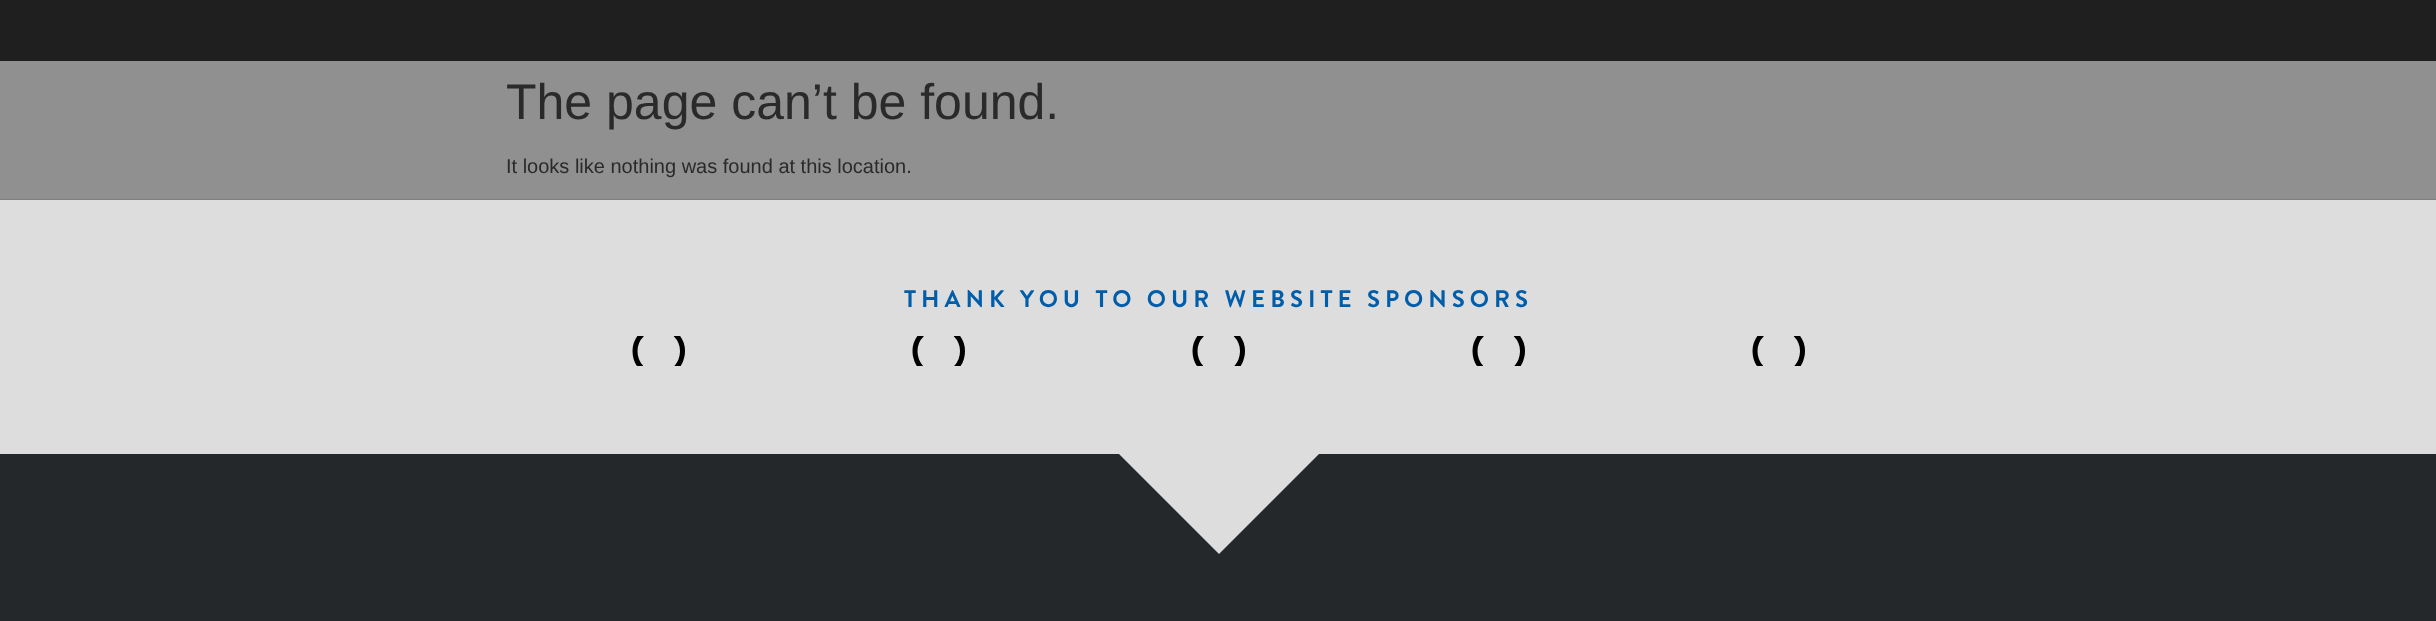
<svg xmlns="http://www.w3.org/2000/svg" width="2436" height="621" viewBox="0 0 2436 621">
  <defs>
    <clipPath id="clip1"><rect x="519" y="336" width="1400" height="30"/></clipPath>
    <clipPath id="clip2"><rect x="0" y="453" width="2436" height="101"/></clipPath>
  </defs>
  <rect width="100%" height="100%" fill="#909090"/>
  <rect x="0" y="0" width="2436" height="61" fill="#1f1f1f"/>
  <text x="506" y="119" font-family="Liberation Sans" font-size="50" fill="#2a2a2a">The page can’t be found.</text>
  <text x="506" y="173" font-family="Liberation Sans" font-size="20" fill="#2a2a2a">It looks like nothing was found at this location.</text>
  <rect x="0" y="200" width="2436" height="254" fill="#dddddd"/>
  <rect x="0" y="199" width="2436" height="1" fill="#7f7f7f"/>
  <text x="904" y="307" font-family="Brandon Grotesque" font-size="24" font-weight="bold" letter-spacing="5" fill="#005daa">THANK YOU TO OUR WEBSITE SPONSORS</text>
  <g clip-path="url(#clip1)">
    <path d="M675.5 334.5C681 340 683.5 348 682 356C676.5 383.5 635 379.5 635 351C635 345 637.5 339 642 334.5" fill="none" stroke="#000000" stroke-width="5"/>
    <path d="M955.5 334.5C960 339 962.5 345 962.5 351C962.5 379.5 921 383.5 915.5 356C914 348 916.5 340 922 334.5" fill="none" stroke="#000000" stroke-width="5"/>
    <path d="M1235.5 334.5C1241 340 1243.5 348 1242 356C1236.5 383.5 1195 379.5 1195 351C1195 345 1197.5 339 1202 334.5" fill="none" stroke="#000000" stroke-width="5"/>
    <path d="M1515.5 334.5C1521 340 1523.5 348 1522 356C1516.5 383.5 1475 379.5 1475 351C1475 345 1477.5 339 1482 334.5" fill="none" stroke="#000000" stroke-width="5"/>
    <path d="M1795.5 334.5C1801 340 1803.5 348 1802 356C1796.5 383.5 1755 379.5 1755 351C1755 345 1757.5 339 1762 334.5" fill="none" stroke="#000000" stroke-width="5"/>
  </g>
  <rect x="0" y="454" width="2436" height="167" fill="#25282b"/>
  <g clip-path="url(#clip2)">
    <path d="M1219 554L1117 452H1321Z" fill="#dddddd"/>
  </g>
</svg>
